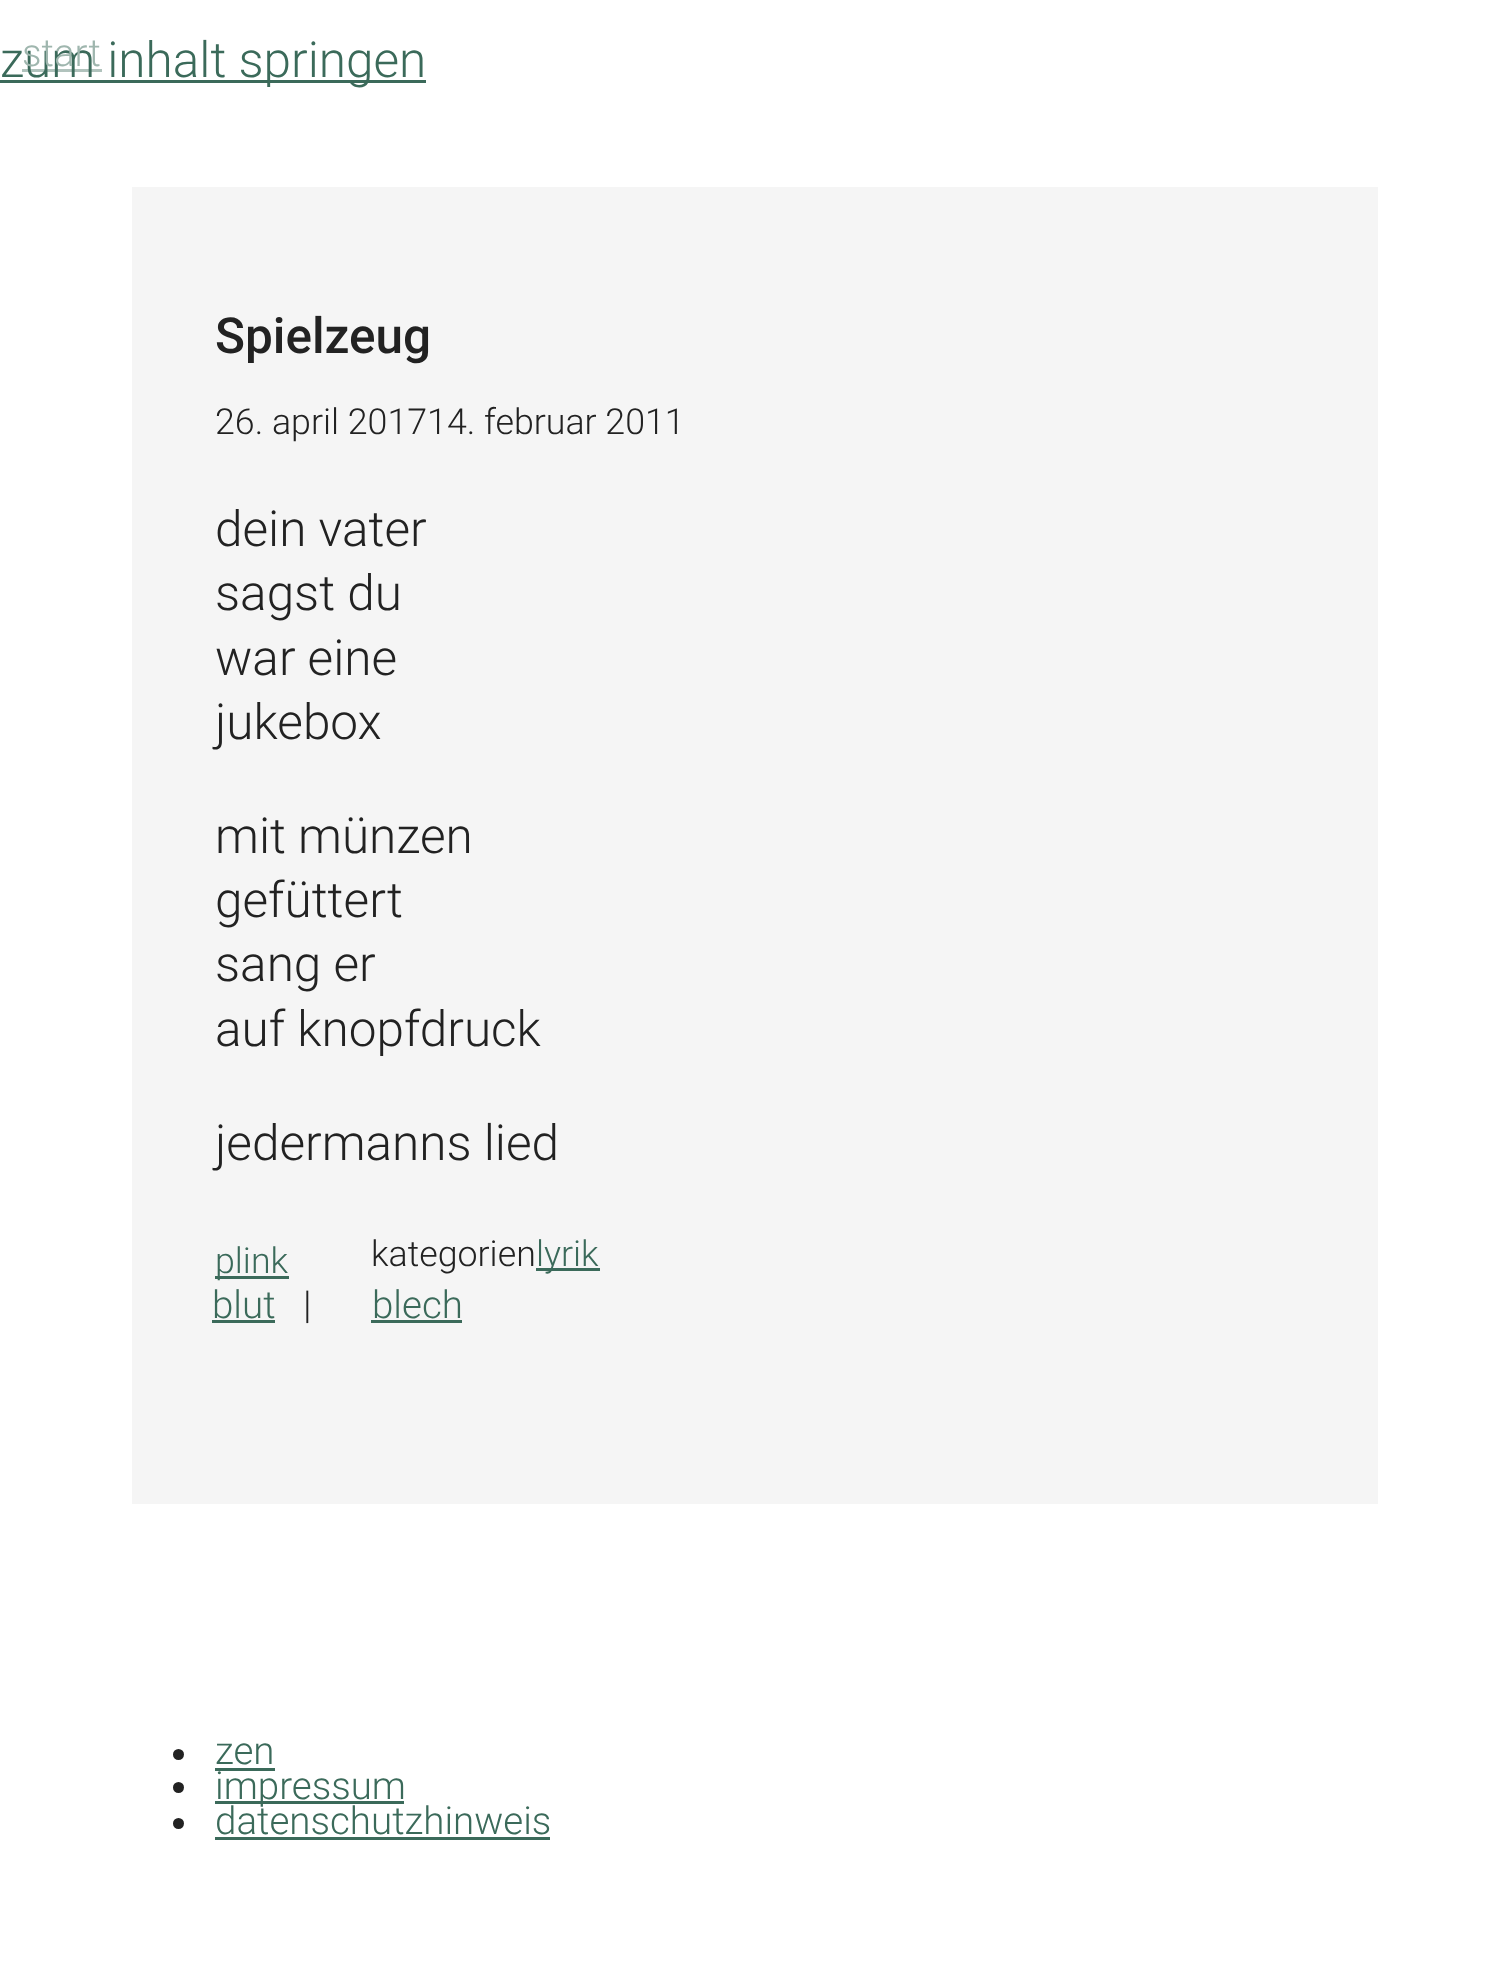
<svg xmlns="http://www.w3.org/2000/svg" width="1508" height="1964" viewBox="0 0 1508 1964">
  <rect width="100%" height="100%" fill="#ffffff"/>
  <rect x="0" y="80" width="426" height="3" fill="#3b6a5a"/>
  <text x="0" y="77" font-family="Roboto" font-size="49.5" font-weight="300" fill="#3b6a5a">zum inhalt springen</text>
  <text x="22" y="66" font-family="Roboto" font-size="38.5" font-weight="300" fill="#9fb6ae">start</text>
  <rect x="22" y="69" width="80" height="3" fill="#3b6a5a" fill-opacity="0.4"/>
  <rect x="132" y="187" width="1246" height="1317" fill="#f5f5f5"/>
  <text x="215" y="353" font-family="Roboto" font-size="49.5" font-weight="500" fill="#222222">Spielzeug</text>
  <text x="215" y="434" font-family="Roboto" font-size="35.75" font-weight="300" fill="#222222">26. april 201714. februar 2011</text>
  <text x="215" y="546" font-family="Roboto" font-size="49.5" font-weight="300" fill="#222222">dein vater</text>
  <text x="215" y="610" font-family="Roboto" font-size="49.5" font-weight="300" fill="#222222">sagst du</text>
  <text x="215" y="675" font-family="Roboto" font-size="49.5" font-weight="300" fill="#222222">war eine</text>
  <text x="215" y="739" font-family="Roboto" font-size="49.5" font-weight="300" fill="#222222">jukebox</text>
  <text x="215" y="853" font-family="Roboto" font-size="49.5" font-weight="300" fill="#222222">mit münzen</text>
  <text x="215" y="917" font-family="Roboto" font-size="49.5" font-weight="300" fill="#222222">gefüttert</text>
  <text x="215" y="981" font-family="Roboto" font-size="49.5" font-weight="300" fill="#222222">sang er</text>
  <text x="215" y="1046" font-family="Roboto" font-size="49.5" font-weight="300" fill="#222222">auf knopfdruck</text>
  <text x="215" y="1160" font-family="Roboto" font-size="49.5" font-weight="300" fill="#222222">jedermanns lied</text>
  <rect x="215" y="1276" width="74" height="3" fill="#3b6a5a"/>
  <text x="215" y="1273" font-family="Roboto" font-size="35.75" font-weight="300" fill="#3b6a5a">plink</text>
  <text x="371" y="1266" font-family="Roboto" font-size="35.75" font-weight="300" fill="#222222">kategorien</text>
  <rect x="536" y="1268" width="64" height="3" fill="#3b6a5a"/>
  <text x="536" y="1266" font-family="Roboto" font-size="35.75" font-weight="300" fill="#3b6a5a">lyrik</text>
  <text x="212" y="1318" font-family="Roboto" font-size="38.5" font-weight="300" fill="#3b6a5a">blut</text>
  <rect x="212" y="1320" width="63" height="3" fill="#3b6a5a"/>
  <text x="303" y="1318" font-family="Roboto" font-size="38.5" font-weight="300" fill="#222222">|</text>
  <text x="372" y="1318" font-family="Roboto" font-size="38.5" font-weight="300" fill="#3b6a5a">blech</text>
  <rect x="371" y="1320" width="91" height="3" fill="#3b6a5a"/>
  <circle cx="178.5" cy="1754.5" r="5.5" fill="#222222"/>
  <text x="215" y="1764" font-family="Roboto" font-size="38.5" font-weight="300" fill="#3b6a5a">zen</text>
  <rect x="215" y="1768" width="60" height="3" fill="#3b6a5a"/>
  <circle cx="178.5" cy="1787.5" r="5.5" fill="#222222"/>
  <rect x="215" y="1801" width="189" height="3" fill="#3b6a5a"/>
  <text x="215" y="1799" font-family="Roboto" font-size="38.5" font-weight="300" fill="#3b6a5a">impressum</text>
  <circle cx="178.5" cy="1823.5" r="5.5" fill="#222222"/>
  <text x="215" y="1834" font-family="Roboto" font-size="38.5" font-weight="300" fill="#3b6a5a">datenschutzhinweis</text>
  <rect x="215" y="1837" width="335" height="3" fill="#3b6a5a"/>
</svg>
